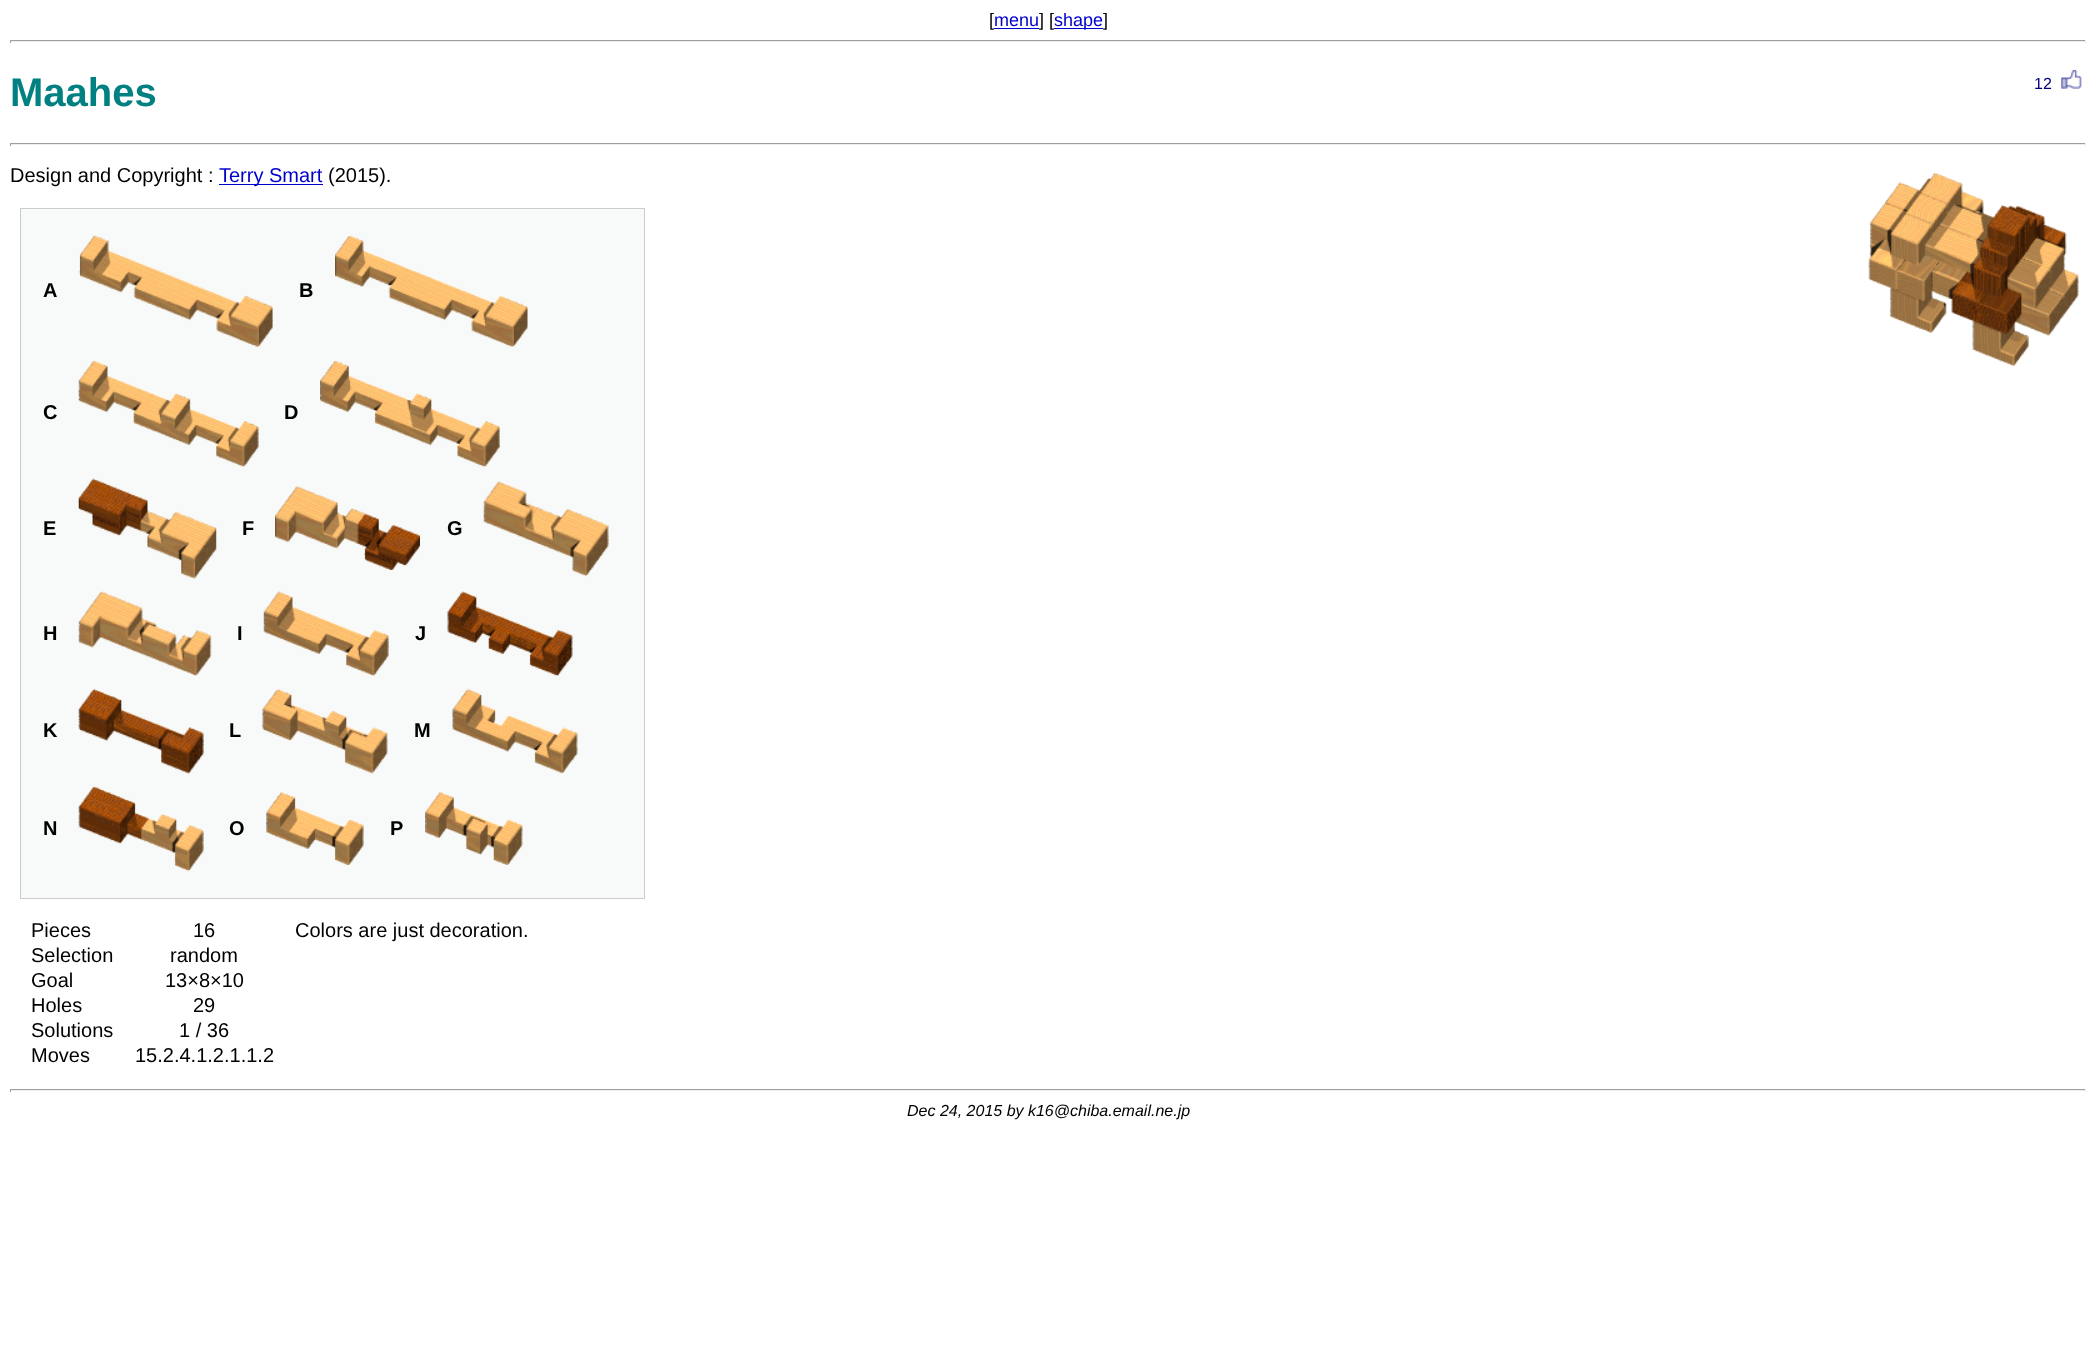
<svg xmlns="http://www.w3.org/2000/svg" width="2096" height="1356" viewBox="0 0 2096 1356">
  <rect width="100%" height="100%" fill="#ffffff"/>
  <text x="989" y="26" font-family="Liberation Sans" font-size="18" fill="#000000">[</text>
  <text x="994" y="26" font-family="Liberation Sans" font-size="18" fill="#0000cc">menu</text>
  <rect x="994" y="28" width="45" height="1" fill="#0000cc"/>
  <text x="1039" y="26" font-family="Liberation Sans" font-size="18" fill="#000000">] [</text>
  <rect x="1054" y="28" width="49" height="1" fill="#0000cc"/>
  <text x="1054" y="26" font-family="Liberation Sans" font-size="18" fill="#0000cc">shape</text>
  <text x="1103" y="26" font-family="Liberation Sans" font-size="18" fill="#000000">]</text>
  <rect x="10" y="40" width="2076" height="1" fill="#9f9f9f"/>
  <rect x="2085" y="40" width="1" height="3" fill="#eeeeee"/>
  <rect x="10" y="41" width="2076" height="1" fill="#eeeeee"/>
  <rect x="10" y="40" width="1" height="3" fill="#9f9f9f"/>
  <text x="10" y="106" font-family="Liberation Sans" font-size="40" font-weight="bold" fill="#008080">Maahes</text>
  <text x="2034" y="89" font-family="Liberation Sans" font-size="16" fill="#000080">12</text>
  <image x="2061" y="69" width="21" height="20" href="img1.png"/>
  <rect x="10" y="143" width="2076" height="1" fill="#9f9f9f"/>
  <rect x="2085" y="143" width="1" height="3" fill="#eeeeee"/>
  <rect x="10" y="144" width="2076" height="1" fill="#eeeeee"/>
  <rect x="10" y="143" width="1" height="3" fill="#9f9f9f"/>
  <text x="10" y="182" font-family="Liberation Sans" font-size="20" fill="#000000">Design and Copyright :</text>
  <rect x="219" y="184" width="104" height="1" fill="#0000cc"/>
  <text x="219" y="182" font-family="Liberation Sans" font-size="20" fill="#0000cc">Terry Smart</text>
  <text x="328" y="182" font-family="Liberation Sans" font-size="20" fill="#000000">(2015).</text>
  <image x="1868" y="172" width="211" height="195" href="img2.png"/>
  <rect x="21" y="209" width="623" height="689" fill="#f8fafa"/>
  <rect x="20" y="208" width="625" height="1" fill="#cccccc"/>
  <rect x="644" y="208" width="1" height="691" fill="#cccccc"/>
  <rect x="20" y="898" width="625" height="1" fill="#cccccc"/>
  <rect x="20" y="208" width="1" height="691" fill="#cccccc"/>
  <text x="43" y="297" font-family="Liberation Sans" font-size="20" font-weight="bold" fill="#000000">A</text>
  <image x="78" y="235" width="196" height="113" href="img3.png"/>
  <text x="299" y="297" font-family="Liberation Sans" font-size="20" font-weight="bold" fill="#000000">B</text>
  <image x="335" y="235" width="193" height="113" href="img4.png"/>
  <text x="43" y="419" font-family="Liberation Sans" font-size="20" font-weight="bold" fill="#000000">C</text>
  <image x="78" y="360" width="181" height="107" href="img5.png"/>
  <text x="284" y="419" font-family="Liberation Sans" font-size="20" font-weight="bold" fill="#000000">D</text>
  <image x="320" y="360" width="180" height="107" href="img6.png"/>
  <text x="43" y="535" font-family="Liberation Sans" font-size="20" font-weight="bold" fill="#000000">E</text>
  <image x="77" y="478" width="140" height="101" href="img7.png"/>
  <text x="242" y="535" font-family="Liberation Sans" font-size="20" font-weight="bold" fill="#000000">F</text>
  <image x="275" y="486" width="145" height="84" href="img8.png"/>
  <text x="447" y="535" font-family="Liberation Sans" font-size="20" font-weight="bold" fill="#000000">G</text>
  <image x="483" y="481" width="126" height="96" href="img9.png"/>
  <text x="43" y="640" font-family="Liberation Sans" font-size="20" font-weight="bold" fill="#000000">H</text>
  <image x="78" y="591" width="134" height="86" href="img10.png"/>
  <text x="237" y="640" font-family="Liberation Sans" font-size="20" font-weight="bold" fill="#000000">I</text>
  <image x="263" y="591" width="126" height="86" href="img11.png"/>
  <text x="415" y="640" font-family="Liberation Sans" font-size="20" font-weight="bold" fill="#000000">J</text>
  <image x="447" y="591" width="126" height="86" href="img12.png"/>
  <text x="43" y="737" font-family="Liberation Sans" font-size="20" font-weight="bold" fill="#000000">K</text>
  <image x="78" y="688" width="126" height="86" href="img13.png"/>
  <text x="229" y="737" font-family="Liberation Sans" font-size="20" font-weight="bold" fill="#000000">L</text>
  <image x="262" y="688" width="126" height="86" href="img14.png"/>
  <text x="414" y="737" font-family="Liberation Sans" font-size="20" font-weight="bold" fill="#000000">M</text>
  <image x="452" y="688" width="126" height="86" href="img15.png"/>
  <text x="43" y="835" font-family="Liberation Sans" font-size="20" font-weight="bold" fill="#000000">N</text>
  <image x="78" y="786" width="126" height="86" href="img16.png"/>
  <text x="229" y="835" font-family="Liberation Sans" font-size="20" font-weight="bold" fill="#000000">O</text>
  <image x="266" y="792" width="98" height="73" href="img17.png"/>
  <text x="390" y="835" font-family="Liberation Sans" font-size="20" font-weight="bold" fill="#000000">P</text>
  <image x="425" y="792" width="98" height="73" href="img18.png"/>
  <text x="31" y="937" font-family="Liberation Sans" font-size="20" fill="#000000">Pieces</text>
  <text x="193" y="937" font-family="Liberation Sans" font-size="20" fill="#000000">16</text>
  <text x="295" y="937" font-family="Liberation Sans" font-size="20" fill="#000000">Colors are just decoration.</text>
  <text x="31" y="962" font-family="Liberation Sans" font-size="20" fill="#000000">Selection</text>
  <text x="170" y="962" font-family="Liberation Sans" font-size="20" fill="#000000">random</text>
  <text x="31" y="987" font-family="Liberation Sans" font-size="20" fill="#000000">Goal</text>
  <text x="165" y="987" font-family="Liberation Sans" font-size="20" fill="#000000">13×8×10</text>
  <text x="31" y="1012" font-family="Liberation Sans" font-size="20" fill="#000000">Holes</text>
  <text x="193" y="1012" font-family="Liberation Sans" font-size="20" fill="#000000">29</text>
  <text x="31" y="1037" font-family="Liberation Sans" font-size="20" fill="#000000">Solutions</text>
  <text x="179" y="1037" font-family="Liberation Sans" font-size="20" fill="#000000">1 / 36</text>
  <text x="31" y="1062" font-family="Liberation Sans" font-size="20" fill="#000000">Moves</text>
  <text x="135" y="1062" font-family="Liberation Sans" font-size="20" fill="#000000">15.2.4.1.2.1.1.2</text>
  <rect x="10" y="1089" width="2076" height="1" fill="#9f9f9f"/>
  <rect x="2085" y="1089" width="1" height="3" fill="#eeeeee"/>
  <rect x="10" y="1090" width="2076" height="1" fill="#eeeeee"/>
  <rect x="10" y="1089" width="1" height="3" fill="#9f9f9f"/>
  <text x="907" y="1116" font-family="Liberation Sans" font-size="16" font-style="italic" fill="#000000">Dec 24, 2015 by k16@chiba.email.ne.jp</text>
</svg>
